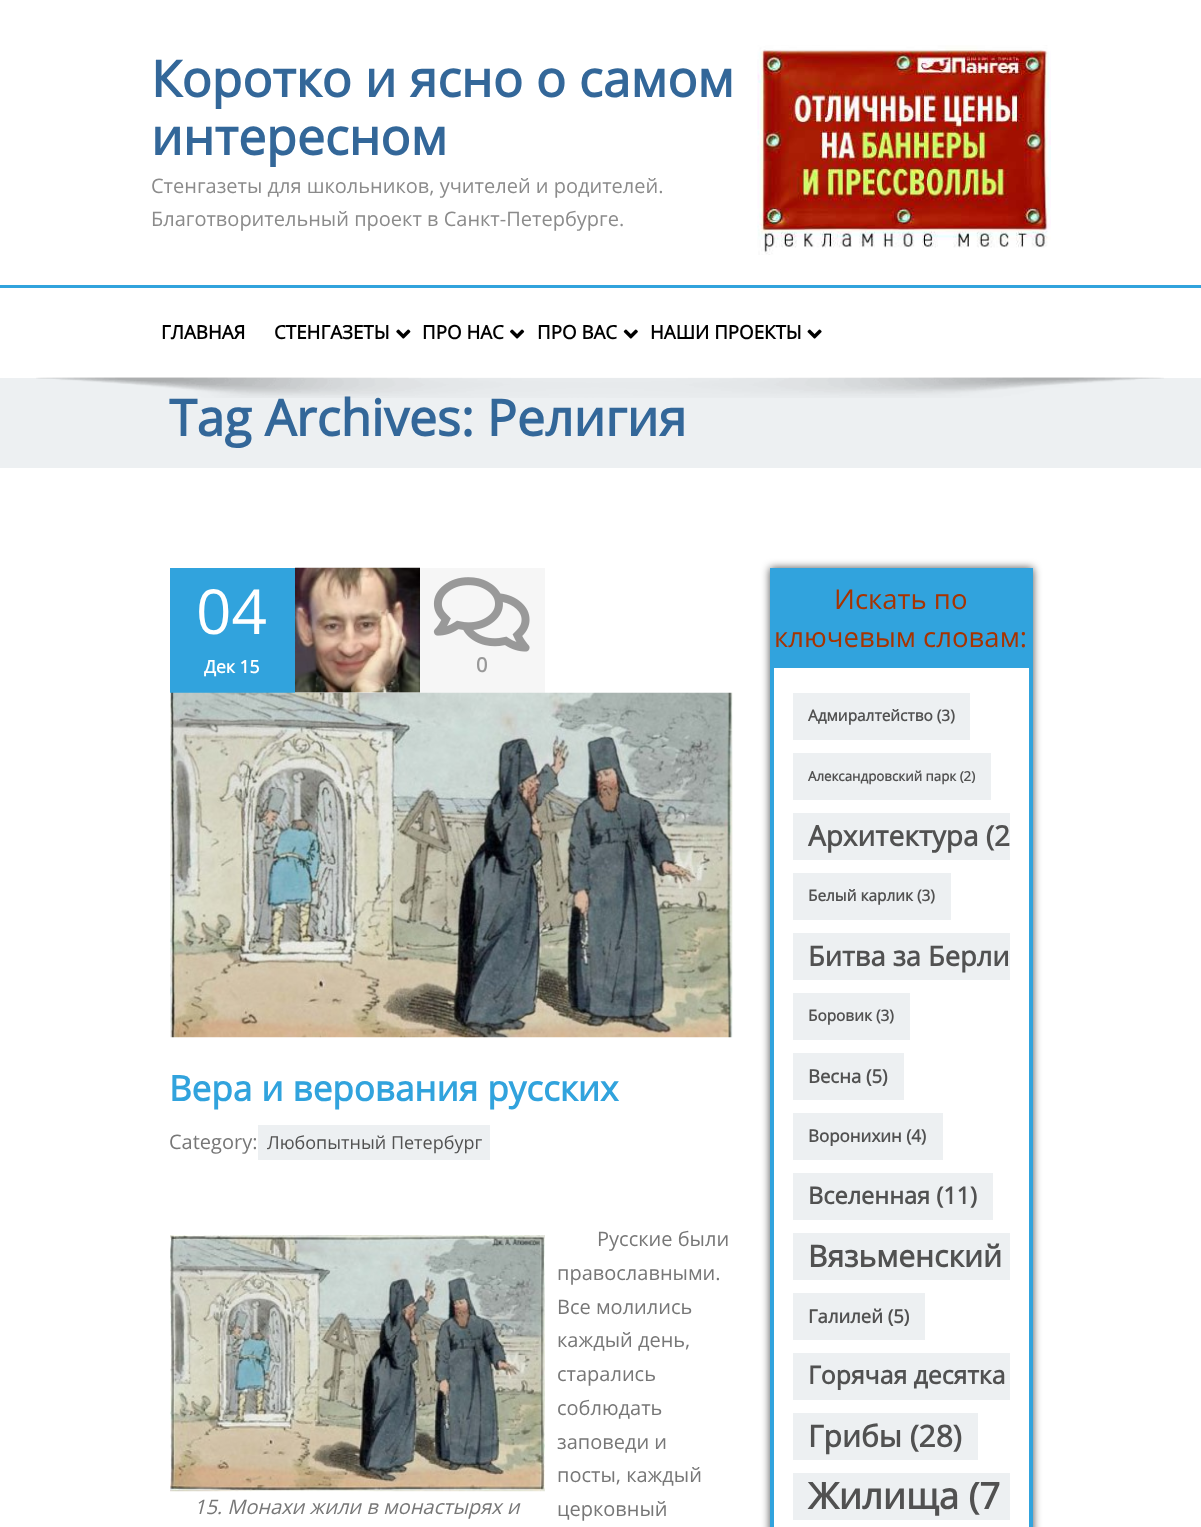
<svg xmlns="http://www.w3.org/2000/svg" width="1201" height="1527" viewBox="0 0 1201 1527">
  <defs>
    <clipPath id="clip1"><path d="M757 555H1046V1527H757ZM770 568H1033V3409H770Z" clip-rule="evenodd"/></clipPath>
    <filter id="blur1" x="-50%" y="-200%" width="200%" height="500%"><feGaussianBlur stdDeviation="4"/></filter>
    <clipPath id="clip2"><rect x="793" y="693" width="217" height="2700"/></clipPath>
  </defs>
  <rect width="100%" height="100%" fill="#ffffff"/>
  <text x="151" y="97" font-family="Open Sans" font-size="50" font-weight="bold" fill="#336799">Коротко и ясно о самом</text>
  <text x="151" y="155" font-family="Open Sans" font-size="50" font-weight="bold" fill="#336799">интересном</text>
  <text x="151" y="193" font-family="Open Sans" font-size="20" fill="#8b8b8b">Стенгазеты для школьников, учителей и родителей.</text>
  <text x="151" y="226" font-family="Open Sans" font-size="20" fill="#8b8b8b">Благотворительный проект в Санкт-Петербурге.</text>
  <image x="757" y="45" width="294" height="210" href="img1.png"/>
  <rect x="0" y="285" width="1201" height="3" fill="#31a3dd"/>
  <text x="161" y="339" font-family="Open Sans" font-size="18.75" font-weight="bold" fill="#000000">ГЛАВНАЯ</text>
  <text x="274" y="339" font-family="Open Sans" font-size="18.75" font-weight="bold" fill="#000000">СТЕНГАЗЕТЫ</text>
  <image x="396" y="329" width="15" height="10" href="img2.png"/>
  <text x="422" y="339" font-family="Open Sans" font-size="18.75" font-weight="bold" fill="#000000">ПРО НАС</text>
  <image x="510" y="329" width="15" height="10" href="img3.png"/>
  <text x="537" y="339" font-family="Open Sans" font-size="18.75" font-weight="bold" fill="#000000">ПРО ВАС</text>
  <image x="623" y="329" width="15" height="10" href="img4.png"/>
  <text x="650" y="339" font-family="Open Sans" font-size="18.75" font-weight="bold" fill="#000000">НАШИ ПРОЕКТЫ</text>
  <image x="807" y="329" width="15" height="10" href="img5.png"/>
  <rect x="0" y="378" width="1201" height="90" fill="#edf0f2"/>
  <image x="36" y="377" width="1128" height="21" href="img6.png"/>
  <text x="169" y="436" font-family="Open Sans" font-size="50" font-weight="bold" fill="#336799">Tag Archives: Религия</text>
  <rect x="170" y="568" width="125" height="125" fill="#31a3dd"/>
  <text x="196" y="634" font-family="Open Sans" font-size="62" fill="#ffffff">04</text>
  <text x="204" y="673" font-family="Open Sans" font-size="17.5" font-weight="bold" fill="#ffffff">Дек 15</text>
  <image x="295" y="567" width="125" height="126" href="img7.png"/>
  <rect x="420" y="568" width="125" height="125" fill="#f6f6f6"/>
  <image x="433" y="577" width="97" height="75" href="img8.png"/>
  <text x="476" y="672" font-family="Open Sans" font-size="20" font-weight="bold" fill="#999999">0</text>
  <image x="170" y="692" width="563" height="346" href="img9.png"/>
  <text x="169" y="1101" font-family="Open Sans" font-size="35" font-weight="bold" fill="#31a3dd">Вера и верования русских</text>
  <text x="169" y="1149" font-family="Open Sans" font-size="20" fill="#777777">Category:</text>
  <rect x="258" y="1125" width="232" height="35" fill="#edf0f2"/>
  <text x="267" y="1149" font-family="Open Sans" font-size="18" fill="#515151">Любопытный Петербург</text>
  <image x="170" y="1235" width="375" height="257" href="img10.png"/>
  <text x="194" y="1514" font-family="Open Sans" font-size="20" font-style="italic" fill="#777777">15. Монахи жили в монастырях и</text>
  <text x="597" y="1246" font-family="Open Sans" font-size="20" fill="#777777">Русские были</text>
  <text x="557" y="1280" font-family="Open Sans" font-size="20" fill="#777777">православными.</text>
  <text x="557" y="1314" font-family="Open Sans" font-size="20" fill="#777777">Все молились</text>
  <text x="557" y="1347" font-family="Open Sans" font-size="20" fill="#777777">каждый день,</text>
  <text x="557" y="1381" font-family="Open Sans" font-size="20" fill="#777777">старались</text>
  <text x="557" y="1415" font-family="Open Sans" font-size="20" fill="#777777">соблюдать</text>
  <text x="557" y="1449" font-family="Open Sans" font-size="20" fill="#777777">заповеди и</text>
  <text x="557" y="1482" font-family="Open Sans" font-size="20" fill="#777777">посты, каждый</text>
  <text x="557" y="1516" font-family="Open Sans" font-size="20" fill="#777777">церковный</text>
  <g clip-path="url(#clip1)">
    <rect x="770" y="568" width="263" height="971" fill="#000000" fill-opacity="0.7" filter="url(#blur1)"/>
  </g>
  <rect x="1029" y="568" width="4" height="959" fill="#31a3dd"/>
  <rect x="770" y="568" width="4" height="959" fill="#31a3dd"/>
  <rect x="774" y="568" width="255" height="100" fill="#31a3dd"/>
  <text x="834" y="609" font-family="Open Sans" font-size="27.5" fill="#a73300">Искать по</text>
  <text x="774" y="647" font-family="Open Sans" font-size="27.5" fill="#a73300">ключевым словам:</text>
  <rect x="793.5" y="693.5" width="176" height="46" fill="#edf0f2" stroke="#edf0f2"/>
  <text x="808" y="721" font-family="Open Sans" font-size="15.4" font-weight="bold" fill="#515151">Адмиралтейство (3)</text>
  <rect x="793.5" y="753.5" width="197" height="46" fill="#edf0f2" stroke="#edf0f2"/>
  <text x="808" y="781" font-family="Open Sans" font-size="13.3" font-weight="bold" fill="#515151">Александровский парк (2)</text>
  <rect x="794" y="814" width="216" height="45" fill="#edf0f2"/>
  <g clip-path="url(#clip2)">
    <rect x="793.5" y="813.5" width="256" height="46" fill="none" stroke="#edf0f2"/>
  </g>
  <text x="808" y="846" font-family="Open Sans" font-size="28" font-weight="bold" fill="#515151">Архитектура (2</text>
  <rect x="793.5" y="873.5" width="157" height="46" fill="#edf0f2" stroke="#edf0f2"/>
  <text x="808" y="901" font-family="Open Sans" font-size="15.4" font-weight="bold" fill="#515151">Белый карлик (3)</text>
  <rect x="794" y="934" width="216" height="45" fill="#edf0f2"/>
  <g clip-path="url(#clip2)">
    <rect x="793.5" y="933.5" width="304" height="46" fill="none" stroke="#edf0f2"/>
  </g>
  <text x="808" y="966" font-family="Open Sans" font-size="27.25" font-weight="bold" fill="#515151">Битва за Берли</text>
  <rect x="793.5" y="993.5" width="116" height="46" fill="#edf0f2" stroke="#edf0f2"/>
  <text x="808" y="1021" font-family="Open Sans" font-size="15.4" font-weight="bold" fill="#515151">Боровик (3)</text>
  <rect x="793.5" y="1053.5" width="110" height="46" fill="#edf0f2" stroke="#edf0f2"/>
  <text x="808" y="1083" font-family="Open Sans" font-size="18.5" font-weight="bold" fill="#515151">Весна (5)</text>
  <rect x="793.5" y="1113.5" width="149" height="46" fill="#edf0f2" stroke="#edf0f2"/>
  <text x="808" y="1142" font-family="Open Sans" font-size="17" font-weight="bold" fill="#515151">Воронихин (4)</text>
  <rect x="793.5" y="1173.5" width="199" height="46" fill="#edf0f2" stroke="#edf0f2"/>
  <text x="808" y="1204" font-family="Open Sans" font-size="23.5" font-weight="bold" fill="#515151">Вселенная (11)</text>
  <rect x="794" y="1234" width="216" height="45" fill="#edf0f2"/>
  <g clip-path="url(#clip2)">
    <rect x="793.5" y="1233.5" width="284" height="46" fill="none" stroke="#edf0f2"/>
  </g>
  <text x="808" y="1267" font-family="Open Sans" font-size="30" font-weight="bold" fill="#515151">Вязьменский</text>
  <rect x="793.5" y="1293.5" width="131" height="46" fill="#edf0f2" stroke="#edf0f2"/>
  <text x="808" y="1323" font-family="Open Sans" font-size="18.5" font-weight="bold" fill="#515151">Галилей (5)</text>
  <rect x="794" y="1354" width="216" height="45" fill="#edf0f2"/>
  <g clip-path="url(#clip2)">
    <rect x="793.5" y="1353.5" width="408" height="46" fill="none" stroke="#edf0f2"/>
  </g>
  <text x="808" y="1384" font-family="Open Sans" font-size="24.75" font-weight="bold" fill="#515151">Горячая десятка</text>
  <rect x="793.5" y="1413.5" width="184" height="46" fill="#edf0f2" stroke="#edf0f2"/>
  <text x="808" y="1447" font-family="Open Sans" font-size="30" font-weight="bold" fill="#515151">Грибы (28)</text>
  <rect x="794" y="1474" width="216" height="45" fill="#edf0f2"/>
  <g clip-path="url(#clip2)">
    <rect x="793.5" y="1473.5" width="255" height="46" fill="none" stroke="#edf0f2"/>
  </g>
  <text x="808" y="1509" font-family="Open Sans" font-size="36.5" font-weight="bold" fill="#515151">Жилища (7</text>
</svg>
